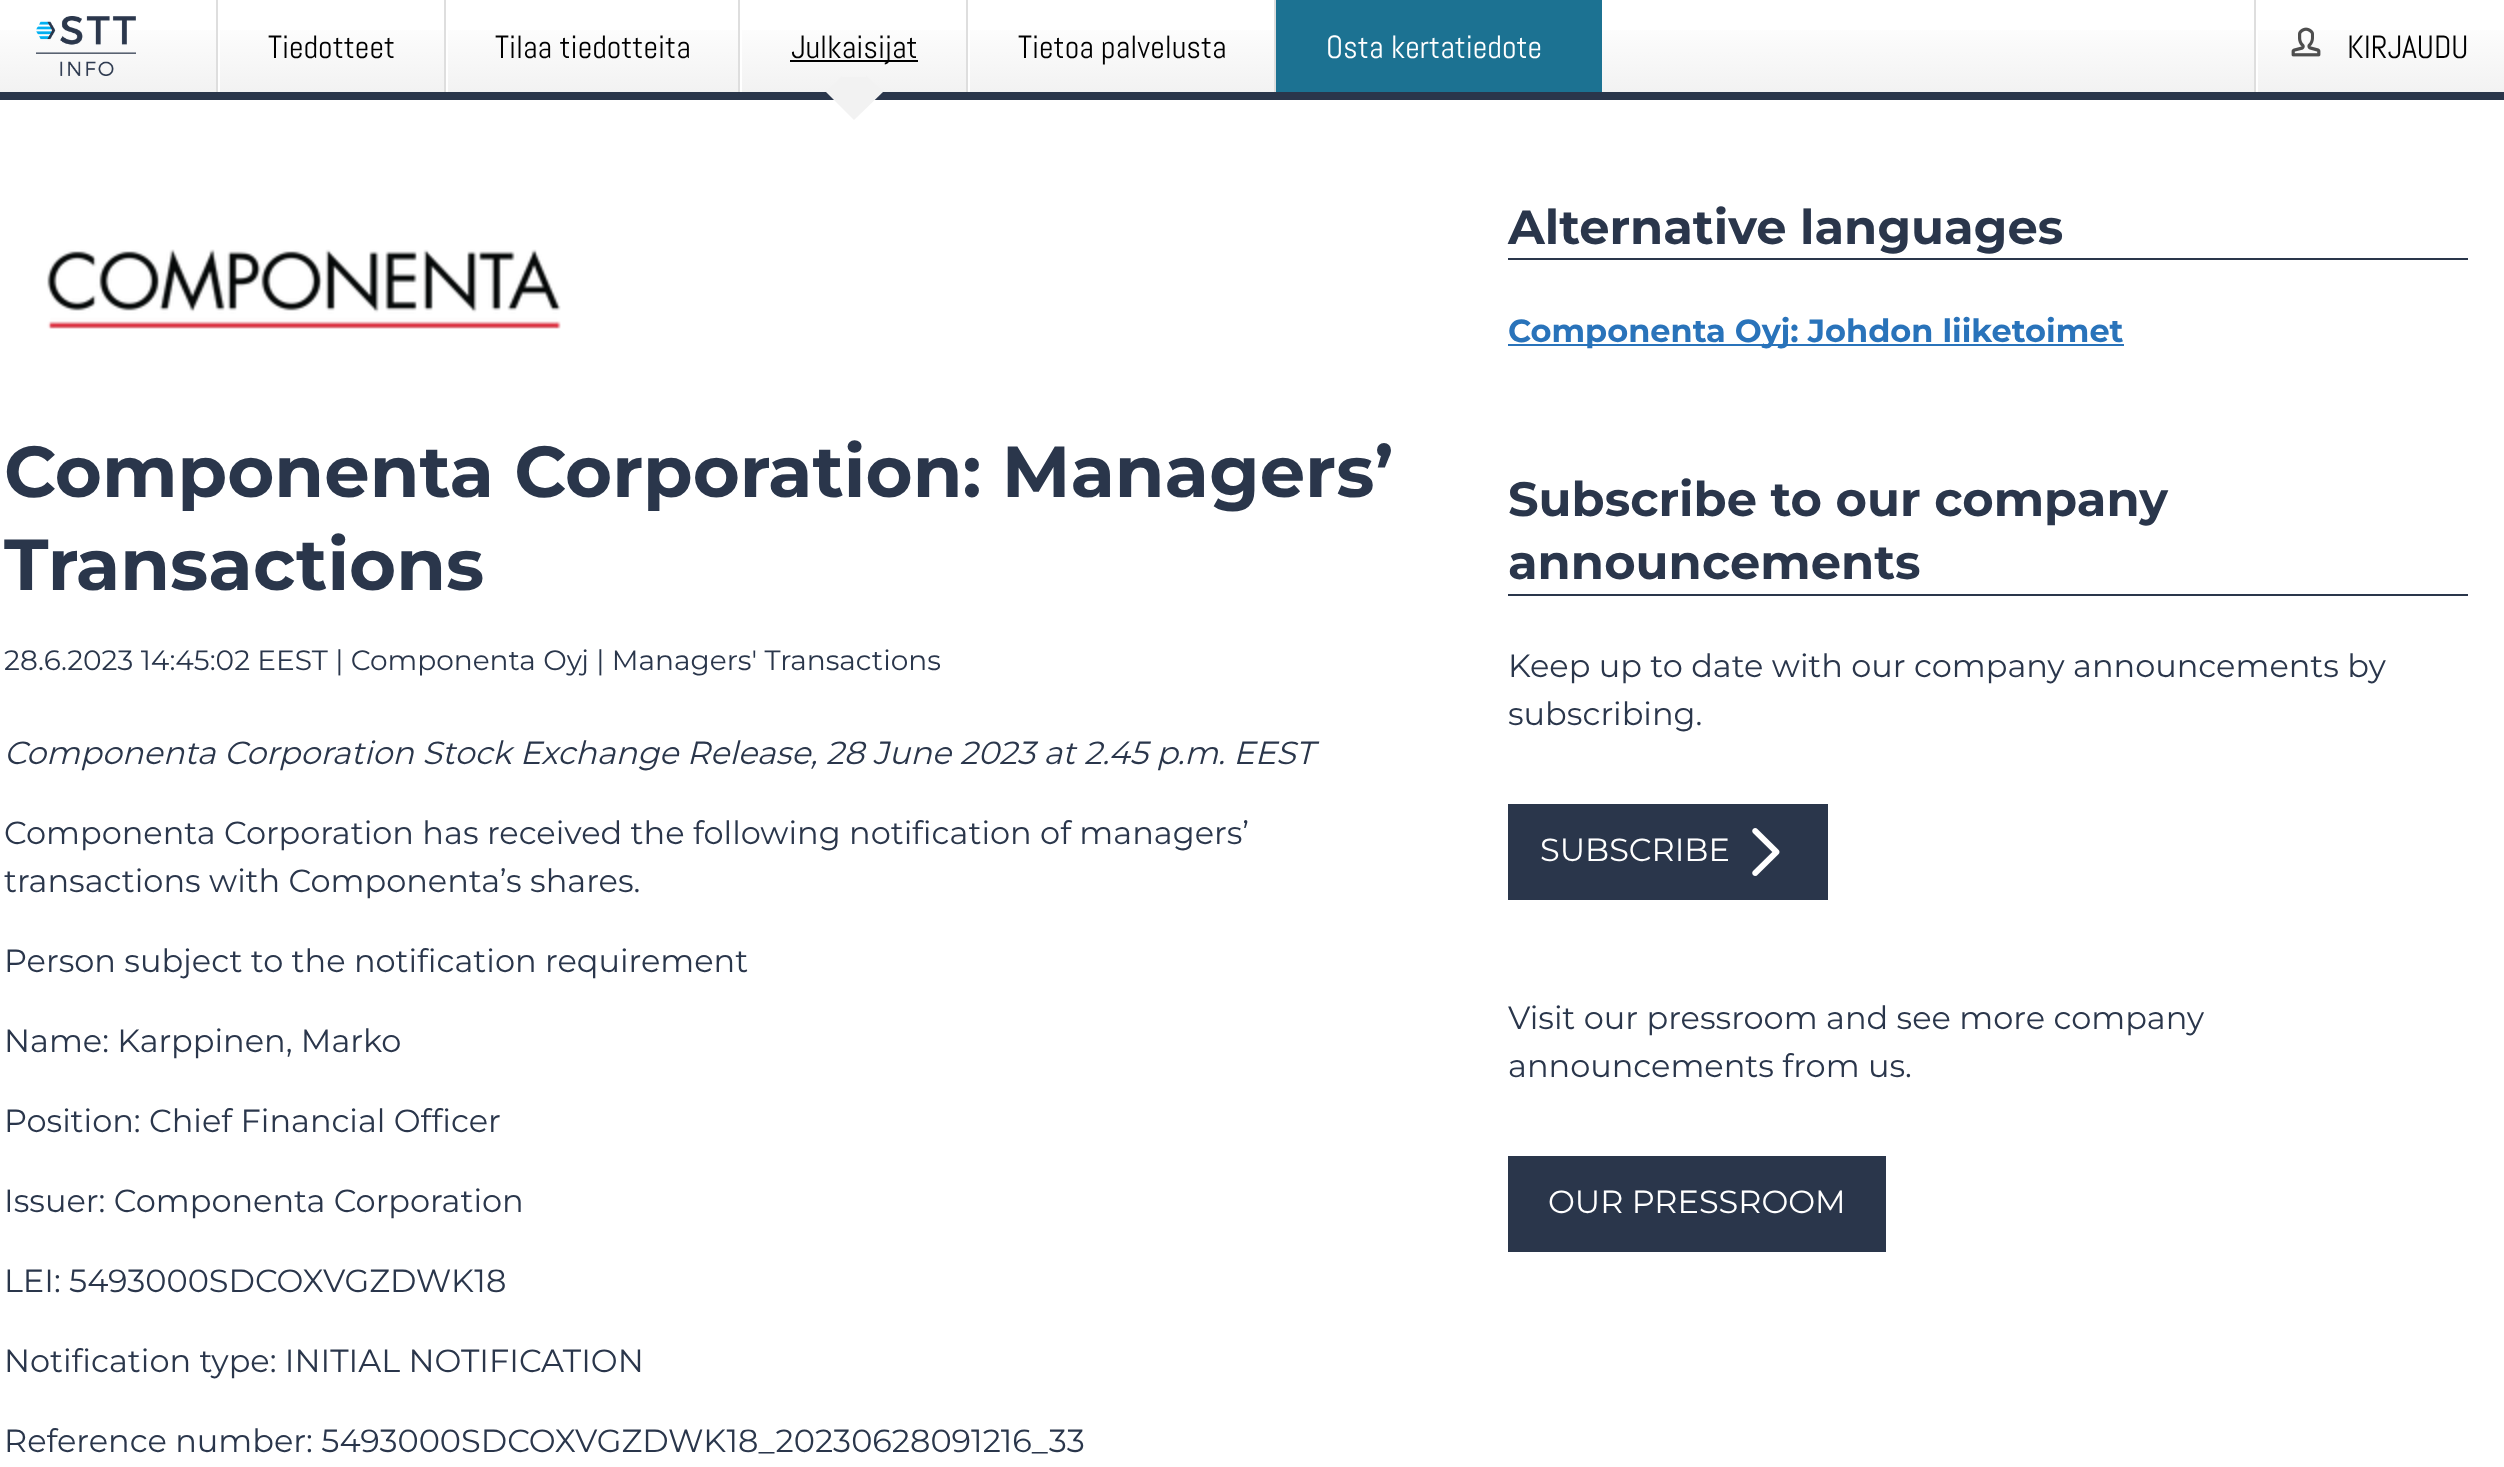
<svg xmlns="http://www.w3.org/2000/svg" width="2504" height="1467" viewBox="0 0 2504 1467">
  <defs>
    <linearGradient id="g1" gradientUnits="userSpaceOnUse" x1="1252" y1="0" x2="1252" y2="92"><stop offset="0.16" stop-color="#ffffff"/><stop offset="1" stop-color="#f2f2f2"/></linearGradient>
    <linearGradient id="g2" gradientUnits="userSpaceOnUse" x1="854" y1="0" x2="854" y2="92"><stop offset="0.16" stop-color="#ffffff"/><stop offset="1" stop-color="#f2f2f2"/></linearGradient>
  </defs>
  <rect width="100%" height="100%" fill="#ffffff"/>
  <rect x="0" y="30" width="2504" height="62" fill="url(#g1)"/>
  <rect x="0" y="92" width="2504" height="8" fill="#2a364b"/>
  <image x="36" y="16" width="100" height="60" href="img1.png"/>
  <rect x="218" y="30" width="2" height="62" fill="#ffffff"/>
  <rect x="216" y="0" width="2" height="92" fill="#dedede"/>
  <text x="268" y="58" font-family="Abel" font-size="32" fill="#000000">Tiedotteet</text>
  <rect x="446" y="30" width="2" height="62" fill="#ffffff"/>
  <rect x="444" y="0" width="2" height="92" fill="#dedede"/>
  <text x="495" y="58" font-family="Abel" font-size="32" fill="#000000">Tilaa tiedotteita</text>
  <rect x="740" y="30" width="2" height="62" fill="#ffffff"/>
  <rect x="738" y="0" width="2" height="92" fill="#dedede"/>
  <rect x="790" y="60" width="128" height="2" fill="#000000"/>
  <path d="M854 64L883 92L854 120L826 92Z" fill="#f2f2f2"/>
  <rect x="842" y="64" width="24" height="13" fill="url(#g2)"/>
  <text x="791" y="58" font-family="Abel" font-size="32" fill="#000000">Julkaisijat</text>
  <rect x="968" y="30" width="2" height="62" fill="#ffffff"/>
  <rect x="966" y="0" width="2" height="92" fill="#dedede"/>
  <text x="1018" y="58" font-family="Abel" font-size="32" fill="#000000">Tietoa palvelusta</text>
  <rect x="1276" y="0" width="326" height="92" fill="#1c7292"/>
  <rect x="1274" y="0" width="2" height="92" fill="#dedede"/>
  <text x="1326" y="58" font-family="Abel" font-size="32" fill="#ffffff">Osta kertatiedote</text>
  <rect x="2256" y="30" width="2" height="62" fill="#ffffff"/>
  <rect x="2254" y="0" width="2" height="92" fill="#dedede"/>
  <image x="2291" y="27" width="30" height="30" href="img2.png"/>
  <text x="2347" y="58" font-family="Abel" font-size="32" fill="#000000">KIRJAUDU</text>
  <image x="47" y="249" width="514" height="80" href="img3.png"/>
  <text x="4" y="497" font-family="Montserrat" font-size="72" font-weight="100" fill="#2a364b">Componenta Corporation: Managers’</text>
  <text x="4" y="590" font-family="Montserrat" font-size="72" font-weight="100" fill="#2a364b">Transactions</text>
  <text x="4" y="670" font-family="'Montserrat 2'" font-size="28" font-weight="100" fill="#2a364b">28.6.2023 14:45:02 EEST | Componenta Oyj | Managers' Transactions</text>
  <text x="4" y="764" font-family="Montserrat" font-size="32" font-weight="100" font-style="italic" fill="#2a364b">Componenta Corporation Stock Exchange Release, 28 June 2023 at 2.45 p.m. EEST</text>
  <text x="4" y="844" font-family="'Montserrat 2'" font-size="32" font-weight="100" fill="#2a364b">Componenta Corporation has received the following notification of managers’</text>
  <text x="4" y="892" font-family="'Montserrat 2'" font-size="32" font-weight="100" fill="#2a364b">transactions with Componenta’s shares.</text>
  <text x="4" y="972" font-family="'Montserrat 2'" font-size="32" font-weight="100" fill="#2a364b">Person subject to the notification requirement</text>
  <text x="4" y="1052" font-family="'Montserrat 2'" font-size="32" font-weight="100" fill="#2a364b">Name: Karppinen, Marko</text>
  <text x="4" y="1132" font-family="'Montserrat 2'" font-size="32" font-weight="100" fill="#2a364b">Position: Chief Financial Officer</text>
  <text x="4" y="1212" font-family="'Montserrat 2'" font-size="32" font-weight="100" fill="#2a364b">Issuer: Componenta Corporation</text>
  <text x="4" y="1292" font-family="'Montserrat 2'" font-size="32" font-weight="100" fill="#2a364b">LEI: 5493000SDCOXVGZDWK18</text>
  <text x="4" y="1372" font-family="'Montserrat 2'" font-size="32" font-weight="100" fill="#2a364b">Notification type: INITIAL NOTIFICATION</text>
  <text x="4" y="1452" font-family="'Montserrat 2'" font-size="32" font-weight="100" fill="#2a364b">Reference number: 5493000SDCOXVGZDWK18_20230628091216_33</text>
  <rect x="1508" y="258" width="960" height="2" fill="#2a364b"/>
  <text x="1508" y="244" font-family="Montserrat" font-size="48" font-weight="100" fill="#2a364b">Alternative languages</text>
  <rect x="1508" y="344" width="616" height="2" fill="#2973ba"/>
  <text x="1508" y="342" font-family="Montserrat" font-size="32" font-weight="100" fill="#2973ba">Componenta Oyj: Johdon liiketoimet</text>
  <rect x="1508" y="594" width="960" height="2" fill="#2a364b"/>
  <text x="1508" y="516" font-family="Montserrat" font-size="48" font-weight="100" fill="#2a364b">Subscribe to our company</text>
  <text x="1508" y="579" font-family="Montserrat" font-size="48" font-weight="100" fill="#2a364b">announcements</text>
  <text x="1508" y="677" font-family="'Montserrat 2'" font-size="32" font-weight="100" fill="#2a364b">Keep up to date with our company announcements by</text>
  <text x="1508" y="725" font-family="'Montserrat 2'" font-size="32" font-weight="100" fill="#2a364b">subscribing.</text>
  <rect x="1508" y="804" width="320" height="96" fill="#2a364b"/>
  <text x="1540" y="861" font-family="'Montserrat 2'" font-size="32" font-weight="100" fill="#ffffff">SUBSCRIBE</text>
  <image x="1752" y="828" width="28" height="48" href="img4.png"/>
  <text x="1508" y="1029" font-family="'Montserrat 2'" font-size="32" font-weight="100" fill="#2a364b">Visit our pressroom and see more company</text>
  <text x="1508" y="1077" font-family="'Montserrat 2'" font-size="32" font-weight="100" fill="#2a364b">announcements from us.</text>
  <rect x="1508" y="1156" width="378" height="96" fill="#2a364b"/>
  <text x="1548" y="1213" font-family="'Montserrat 2'" font-size="32" font-weight="100" fill="#ffffff">OUR PRESSROOM</text>
</svg>
